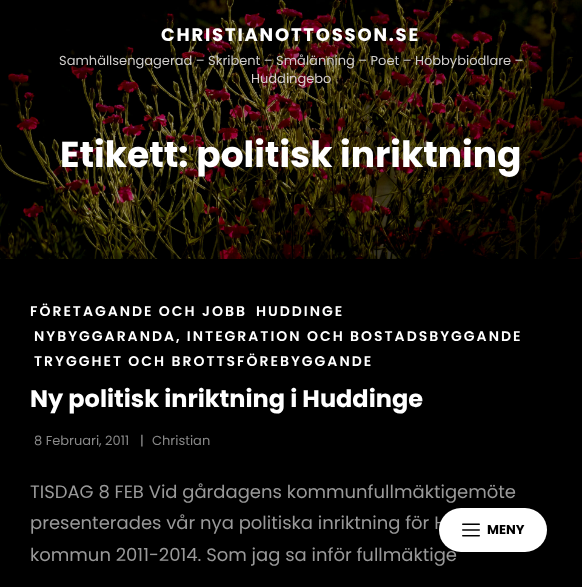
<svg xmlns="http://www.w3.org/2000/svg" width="582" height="587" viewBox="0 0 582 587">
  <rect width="100%" height="100%" fill="#000000"/>
  <image x="0" y="0" width="582" height="259" href="img2.png"/>
  <text x="161" y="41" font-family="Poppins" font-size="18" font-weight="bold" letter-spacing="1.8" fill="#ffffff">CHRISTIANOTTOSSON.SE</text>
  <text x="59" y="65" font-family="Poppins" font-size="13" fill="#ceccca">Samhällsengagerad – Skribent – Smålänning – Poet – Hobbybiodlare –</text>
  <text x="251" y="83" font-family="Poppins" font-size="13" fill="#d7cfcd">Huddingebo</text>
  <text x="30" y="529" font-family="Poppins" font-size="18" fill="#999999">presenterades vår nya politiska inriktning för H</text>
  <text x="30" y="561" font-family="Poppins" font-size="18" fill="#999999">kommun 2011-2014. Som jag sa inför fullmäktige</text>
  <rect x="439" y="508" width="108" height="44" rx="22" fill="#ffffff"/>
  <image x="462" y="523" width="18" height="14" href="img1.png"/>
  <text x="487" y="534" font-family="Poppins" font-size="13" font-weight="bold" fill="#000000">MENY</text>
  <text x="60" y="167" font-family="Poppins" font-size="36" font-weight="bold" fill="#ffffff">Etikett: politisk inriktning</text>
  <text x="30" y="316" font-family="Poppins" font-size="14" font-weight="600" letter-spacing="2" fill="#ffffff">FÖRETAGANDE OCH JOBB</text>
  <text x="256" y="316" font-family="Poppins" font-size="14" font-weight="600" letter-spacing="2" fill="#ffffff">HUDDINGE</text>
  <text x="34" y="341" font-family="Poppins" font-size="14" font-weight="600" letter-spacing="2" fill="#ffffff">NYBYGGARANDA, INTEGRATION OCH BOSTADSBYGGANDE</text>
  <text x="34" y="366" font-family="Poppins" font-size="14" font-weight="600" letter-spacing="2" fill="#ffffff">TRYGGHET OCH BROTTSFÖREBYGGANDE</text>
  <text x="30" y="407" font-family="Poppins" font-size="24" font-weight="bold" fill="#ffffff">Ny politisk inriktning i Huddinge</text>
  <text x="34" y="445" font-family="Poppins" font-size="13" fill="#888888">8 Februari, 2011</text>
  <text x="140" y="445" font-family="Poppins" font-size="13" fill="#999999">|</text>
  <text x="152" y="445" font-family="Poppins" font-size="13" fill="#888888">Christian</text>
  <text x="30" y="498" font-family="Poppins" font-size="18" fill="#999999">TISDAG 8 FEB Vid gårdagens kommunfullmäktigemöte</text>
</svg>
